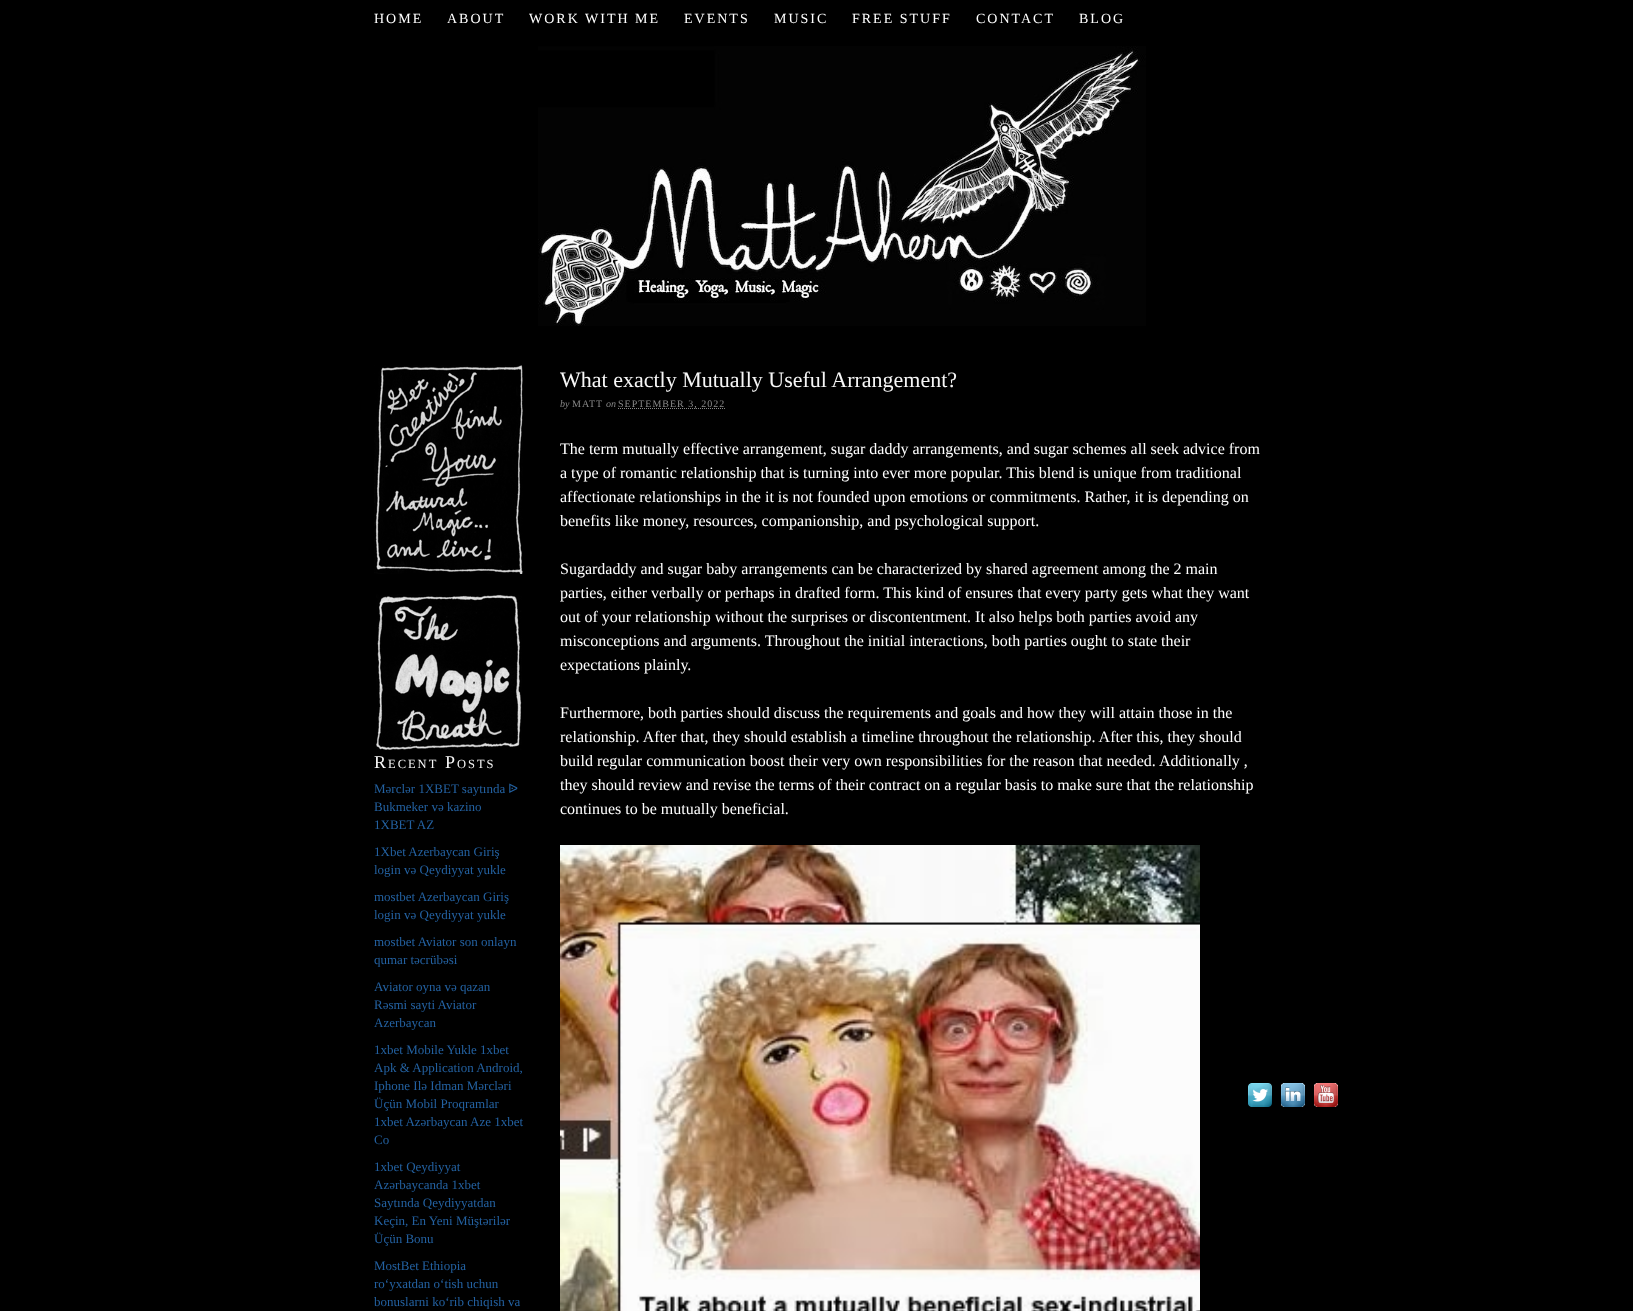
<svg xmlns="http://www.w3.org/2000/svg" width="1633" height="1311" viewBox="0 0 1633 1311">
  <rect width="100%" height="100%" fill="#000000"/>
  <text x="374" y="23" font-family="Liberation Serif" font-size="14" letter-spacing="2" fill="#ffffff">HOME</text>
  <text x="447" y="23" font-family="Liberation Serif" font-size="14" letter-spacing="2" fill="#ffffff">ABOUT</text>
  <text x="529" y="23" font-family="Liberation Serif" font-size="14" letter-spacing="2" fill="#ffffff">WORK WITH ME</text>
  <text x="684" y="23" font-family="Liberation Serif" font-size="14" letter-spacing="2" fill="#ffffff">EVENTS</text>
  <text x="774" y="23" font-family="Liberation Serif" font-size="14" letter-spacing="2" fill="#ffffff">MUSIC</text>
  <text x="852" y="23" font-family="Liberation Serif" font-size="14" letter-spacing="2" fill="#ffffff">FREE STUFF</text>
  <text x="976" y="23" font-family="Liberation Serif" font-size="14" letter-spacing="2" fill="#ffffff">CONTACT</text>
  <text x="1079" y="23" font-family="Liberation Serif" font-size="14" letter-spacing="2" fill="#ffffff">BLOG</text>
  <image x="538" y="46" width="608" height="280" href="img1.png"/>
  <text x="560" y="387" font-family="Liberation Serif" font-size="22" fill="#f7f7f7">What exactly Mutually Useful Arrangement?</text>
  <text x="560" y="407" font-family="Liberation Serif" font-size="10" font-style="italic" fill="#888888">by</text>
  <text x="572" y="407" font-family="Liberation Serif" font-size="10" letter-spacing="1" fill="#888888">MATT</text>
  <text x="606" y="407" font-family="Liberation Serif" font-size="10" font-style="italic" fill="#888888">on</text>
  <path d="M618 408.5H725.5" fill="none" stroke="#888888" stroke-dasharray="1 1"/>
  <text x="618" y="407" font-family="Liberation Serif" font-size="10" letter-spacing="1" fill="#888888">SEPTEMBER 3, 2022</text>
  <text x="560" y="454" font-family="Liberation Serif" font-size="16" fill="#ffffff">The term mutually effective arrangement, sugar daddy arrangements, and sugar schemes all seek advice from</text>
  <text x="560" y="478" font-family="Liberation Serif" font-size="16" fill="#ffffff">a type of romantic relationship that is turning into ever more popular. This blend is unique from traditional</text>
  <text x="560" y="502" font-family="Liberation Serif" font-size="16" fill="#ffffff">affectionate relationships in the it is not founded upon emotions or commitments. Rather, it is depending on</text>
  <text x="560" y="526" font-family="Liberation Serif" font-size="16" fill="#ffffff">benefits like money, resources, companionship, and psychological support.</text>
  <text x="560" y="574" font-family="Liberation Serif" font-size="16" fill="#ffffff">Sugardaddy and sugar baby arrangements can be characterized by shared agreement among the 2 main</text>
  <text x="560" y="598" font-family="Liberation Serif" font-size="16" fill="#ffffff">parties, either verbally or perhaps in drafted form. This kind of ensures that every party gets what they want</text>
  <text x="560" y="622" font-family="Liberation Serif" font-size="16" fill="#ffffff">out of your relationship without the surprises or discontentment. It also helps both parties avoid any</text>
  <text x="560" y="646" font-family="Liberation Serif" font-size="16" fill="#ffffff">misconceptions and arguments. Throughout the initial interactions, both parties ought to state their</text>
  <text x="560" y="670" font-family="Liberation Serif" font-size="16" fill="#ffffff">expectations plainly.</text>
  <text x="560" y="718" font-family="Liberation Serif" font-size="16" fill="#ffffff">Furthermore, both parties should discuss the requirements and goals and how they will attain those in the</text>
  <text x="560" y="742" font-family="Liberation Serif" font-size="16" fill="#ffffff">relationship. After that, they should establish a timeline throughout the relationship. After this, they should</text>
  <text x="560" y="766" font-family="Liberation Serif" font-size="16" fill="#ffffff">build regular communication boost their very own responsibilities for the reason that needed. Additionally ,</text>
  <text x="560" y="790" font-family="Liberation Serif" font-size="16" fill="#ffffff">they should review and revise the terms of their contract on a regular basis to make sure that the relationship</text>
  <text x="560" y="814" font-family="Liberation Serif" font-size="16" fill="#ffffff">continues to be mutually beneficial.</text>
  <image x="560" y="845" width="640" height="466" href="img2.png"/>
  <image x="374" y="365" width="149" height="209" href="img3.png"/>
  <image x="376" y="594" width="146" height="156" href="img4.png"/>
  <text x="374" y="768" font-family="Liberation Serif" font-size="18" letter-spacing="2" fill="#f7f7f7">R</text>
  <text x="388" y="768" font-family="Liberation Serif" font-size="12.5" letter-spacing="2" fill="#f7f7f7">ECENT</text>
  <text x="445" y="768" font-family="Liberation Serif" font-size="18" letter-spacing="2" fill="#f7f7f7">P</text>
  <text x="457" y="768" font-family="Liberation Serif" font-size="12.5" letter-spacing="2" fill="#f7f7f7">OSTS</text>
  <text x="374" y="793" font-family="Liberation Serif" font-size="13" fill="#2361a1">Mərclər 1XBET saytında</text>
  <text x="508" y="793" font-family="DejaVu Sans" font-size="13" fill="#2361a1">ᐉ</text>
  <text x="374" y="811" font-family="Liberation Serif" font-size="13" fill="#2361a1">Bukmeker və kazino</text>
  <text x="374" y="829" font-family="Liberation Serif" font-size="13" fill="#2361a1">1XBET AZ</text>
  <text x="374" y="856" font-family="Liberation Serif" font-size="13" fill="#2361a1">1Xbet Azerbaycan Giriş</text>
  <text x="374" y="874" font-family="Liberation Serif" font-size="13" fill="#2361a1">login və Qeydiyyat yukle</text>
  <text x="374" y="901" font-family="Liberation Serif" font-size="13" fill="#2361a1">mostbet Azerbaycan Giriş</text>
  <text x="374" y="919" font-family="Liberation Serif" font-size="13" fill="#2361a1">login və Qeydiyyat yukle</text>
  <text x="374" y="946" font-family="Liberation Serif" font-size="13" fill="#2361a1">mostbet Aviator son onlayn</text>
  <text x="374" y="964" font-family="Liberation Serif" font-size="13" fill="#2361a1">qumar təcrübəsi</text>
  <text x="374" y="991" font-family="Liberation Serif" font-size="13" fill="#2361a1">Aviator oyna və qazan</text>
  <text x="374" y="1009" font-family="Liberation Serif" font-size="13" fill="#2361a1">Rəsmi sayti Aviator</text>
  <text x="374" y="1027" font-family="Liberation Serif" font-size="13" fill="#2361a1">Azerbaycan</text>
  <text x="374" y="1054" font-family="Liberation Serif" font-size="13" fill="#2361a1">1xbet Mobile Yukle 1xbet</text>
  <text x="374" y="1072" font-family="Liberation Serif" font-size="13" fill="#2361a1">Apk &amp; Application Android,</text>
  <text x="374" y="1090" font-family="Liberation Serif" font-size="13" fill="#2361a1">Iphone Ilə Idman Mərcləri</text>
  <text x="374" y="1108" font-family="Liberation Serif" font-size="13" fill="#2361a1">Üçün Mobil Proqramlar</text>
  <text x="374" y="1126" font-family="Liberation Serif" font-size="13" fill="#2361a1">1xbet Azərbaycan Aze 1xbet</text>
  <text x="374" y="1144" font-family="Liberation Serif" font-size="13" fill="#2361a1">Co</text>
  <text x="374" y="1171" font-family="Liberation Serif" font-size="13" fill="#2361a1">1xbet Qeydiyyat</text>
  <text x="374" y="1189" font-family="Liberation Serif" font-size="13" fill="#2361a1">Azərbaycanda 1xbet</text>
  <text x="374" y="1207" font-family="Liberation Serif" font-size="13" fill="#2361a1">Saytında Qeydiyyatdan</text>
  <text x="374" y="1225" font-family="Liberation Serif" font-size="13" fill="#2361a1">Keçin, En Yeni Müştərilər</text>
  <text x="374" y="1243" font-family="Liberation Serif" font-size="13" fill="#2361a1">Üçün Bonu</text>
  <text x="374" y="1270" font-family="Liberation Serif" font-size="13" fill="#2361a1">MostBet Ethiopia</text>
  <text x="374" y="1288" font-family="Liberation Serif" font-size="13" fill="#2361a1">roʻyxatdan oʻtish uchun</text>
  <text x="374" y="1306" font-family="Liberation Serif" font-size="13" fill="#2361a1">bonuslarni koʻrib chiqish va</text>
  <image x="1248" y="1083" width="24" height="24" href="img5.png"/>
  <image x="1281" y="1083" width="24" height="24" href="img6.png"/>
  <image x="1314" y="1083" width="24" height="24" href="img7.png"/>
</svg>
